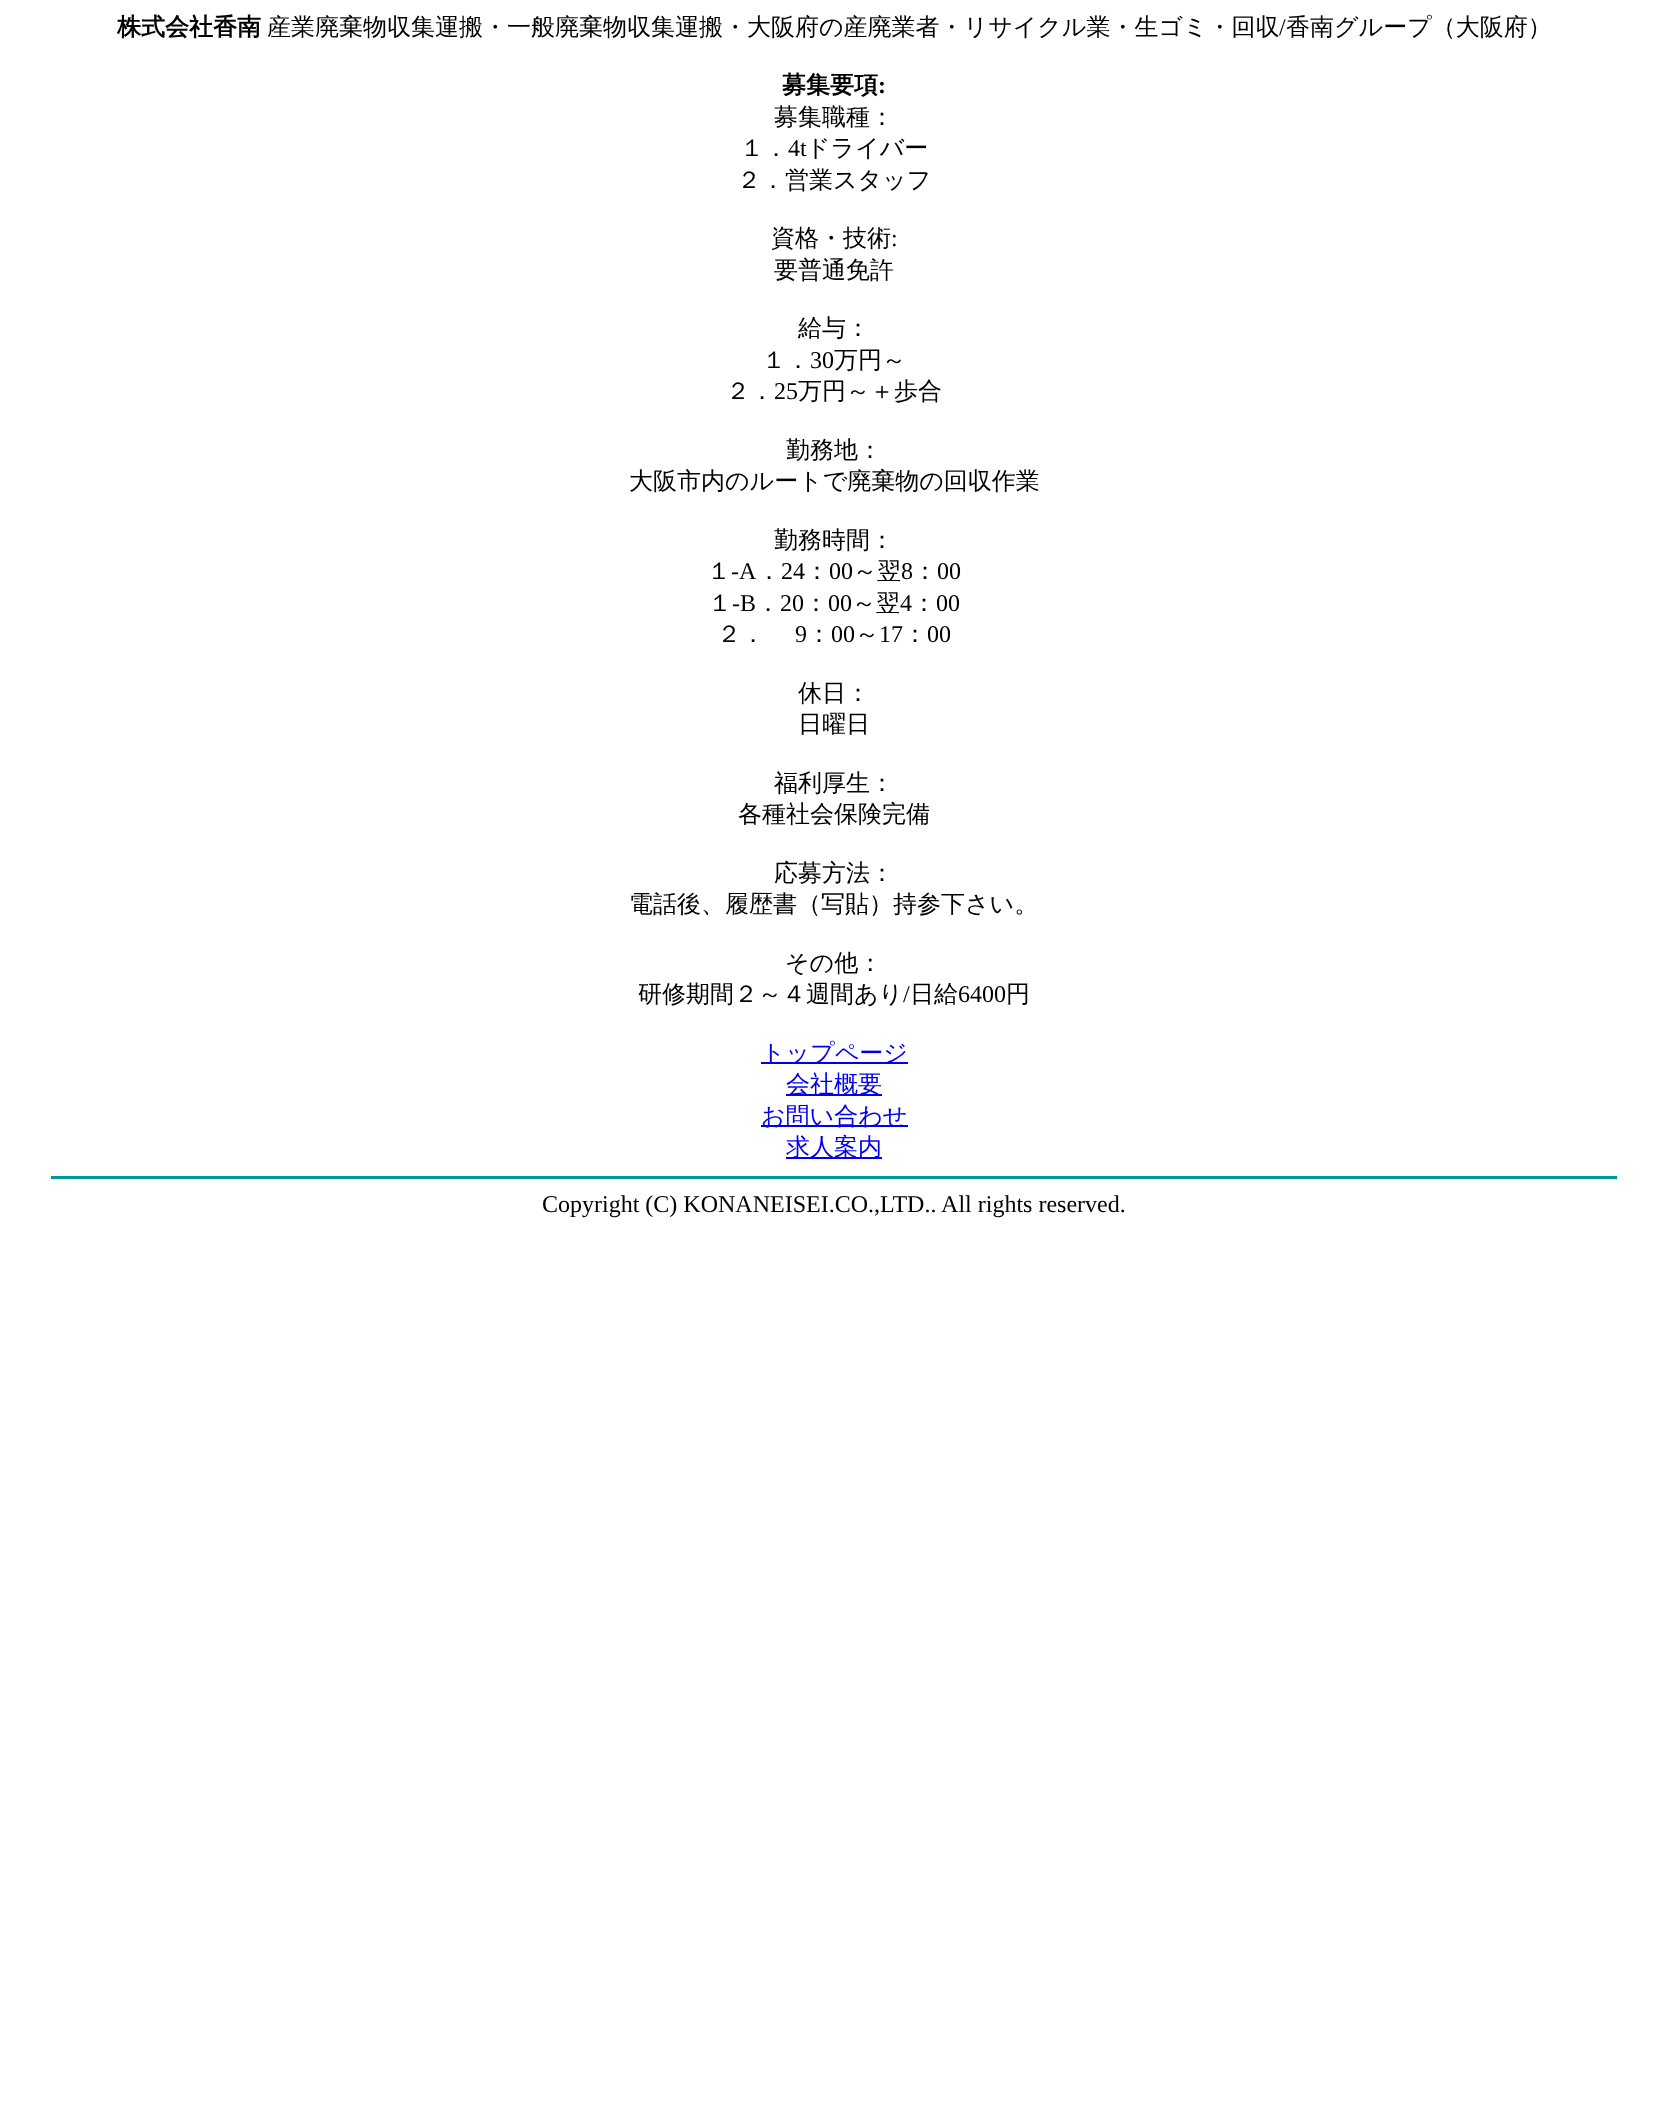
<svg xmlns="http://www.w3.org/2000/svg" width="1668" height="2125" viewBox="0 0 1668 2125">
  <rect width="100%" height="100%" fill="#ffffff"/>
  <text x="117" y="35" font-family="WenQuanYi Zen Hei" font-size="24" font-weight="bold" fill="#000000">株式会社香南</text>
  <text x="267" y="35" font-family="WenQuanYi Zen Hei" font-size="24" font-weight="500" fill="#000000">産業廃棄物収集運搬・一般廃棄物収集運搬・大阪府の産廃業者・リサイクル業・生ゴミ・回収</text>
  <text x="1279" y="35" font-family="Liberation Serif" font-size="24" fill="#000000">/</text>
  <text x="1286" y="35" font-family="WenQuanYi Zen Hei" font-size="24" font-weight="500" fill="#000000">香南グループ（大阪府）</text>
  <text x="782" y="93" font-family="WenQuanYi Zen Hei" font-size="24" font-weight="bold" fill="#000000">募集要項</text>
  <text x="878" y="93" font-family="Liberation Serif" font-size="24" font-weight="bold" fill="#000000">:</text>
  <text x="774" y="125" font-family="WenQuanYi Zen Hei" font-size="24" font-weight="500" fill="#000000">募集職種：</text>
  <text x="740" y="156" font-family="WenQuanYi Zen Hei" font-size="24" font-weight="500" fill="#000000">１．</text>
  <text x="788" y="156" font-family="Liberation Serif" font-size="24" fill="#000000">4t</text>
  <text x="806" y="156" font-family="WenQuanYi Zen Hei" font-size="24" font-weight="500" fill="#000000">ドライバー</text>
  <text x="737" y="188" font-family="WenQuanYi Zen Hei" font-size="24" font-weight="500" fill="#000000">２．営業スタッフ</text>
  <text x="771" y="246" font-family="WenQuanYi Zen Hei" font-size="24" font-weight="500" fill="#000000">資格・技術</text>
  <text x="891" y="246" font-family="Liberation Serif" font-size="24" fill="#000000">:</text>
  <text x="774" y="278" font-family="WenQuanYi Zen Hei" font-size="24" font-weight="500" fill="#000000">要普通免許</text>
  <text x="798" y="336" font-family="WenQuanYi Zen Hei" font-size="24" font-weight="500" fill="#000000">給与：</text>
  <text x="762" y="368" font-family="WenQuanYi Zen Hei" font-size="24" font-weight="500" fill="#000000">１．</text>
  <text x="810" y="368" font-family="Liberation Serif" font-size="24" fill="#000000">30</text>
  <text x="834" y="368" font-family="WenQuanYi Zen Hei" font-size="24" font-weight="500" fill="#000000">万円～</text>
  <text x="726" y="399" font-family="WenQuanYi Zen Hei" font-size="24" font-weight="500" fill="#000000">２．</text>
  <text x="774" y="399" font-family="Liberation Serif" font-size="24" fill="#000000">25</text>
  <text x="798" y="399" font-family="WenQuanYi Zen Hei" font-size="24" font-weight="500" fill="#000000">万円～＋歩合</text>
  <text x="786" y="458" font-family="WenQuanYi Zen Hei" font-size="24" font-weight="500" fill="#000000">勤務地：</text>
  <text x="629" y="489" font-family="WenQuanYi Zen Hei" font-size="24" font-weight="500" fill="#000000">大阪市内のルートで廃棄物の回収作業</text>
  <text x="774" y="548" font-family="WenQuanYi Zen Hei" font-size="24" font-weight="500" fill="#000000">勤務時間：</text>
  <text x="707" y="579" font-family="WenQuanYi Zen Hei" font-size="24" font-weight="500" fill="#000000">１</text>
  <text x="731" y="579" font-family="Liberation Serif" font-size="24" fill="#000000">-A</text>
  <text x="757" y="579" font-family="WenQuanYi Zen Hei" font-size="24" font-weight="500" fill="#000000">．</text>
  <text x="781" y="579" font-family="Liberation Serif" font-size="24" fill="#000000">24</text>
  <text x="805" y="579" font-family="WenQuanYi Zen Hei" font-size="24" font-weight="500" fill="#000000">：</text>
  <text x="829" y="579" font-family="Liberation Serif" font-size="24" fill="#000000">00</text>
  <text x="853" y="579" font-family="WenQuanYi Zen Hei" font-size="24" font-weight="500" fill="#000000">～翌</text>
  <text x="901" y="579" font-family="Liberation Serif" font-size="24" fill="#000000">8</text>
  <text x="913" y="579" font-family="WenQuanYi Zen Hei" font-size="24" font-weight="500" fill="#000000">：</text>
  <text x="937" y="579" font-family="Liberation Serif" font-size="24" fill="#000000">00</text>
  <text x="708" y="611" font-family="WenQuanYi Zen Hei" font-size="24" font-weight="500" fill="#000000">１</text>
  <text x="732" y="611" font-family="Liberation Serif" font-size="24" fill="#000000">-B</text>
  <text x="756" y="611" font-family="WenQuanYi Zen Hei" font-size="24" font-weight="500" fill="#000000">．</text>
  <text x="780" y="611" font-family="Liberation Serif" font-size="24" fill="#000000">20</text>
  <text x="804" y="611" font-family="WenQuanYi Zen Hei" font-size="24" font-weight="500" fill="#000000">：</text>
  <text x="828" y="611" font-family="Liberation Serif" font-size="24" fill="#000000">00</text>
  <text x="852" y="611" font-family="WenQuanYi Zen Hei" font-size="24" font-weight="500" fill="#000000">～翌</text>
  <text x="900" y="611" font-family="Liberation Serif" font-size="24" fill="#000000">4</text>
  <text x="912" y="611" font-family="WenQuanYi Zen Hei" font-size="24" font-weight="500" fill="#000000">：</text>
  <text x="936" y="611" font-family="Liberation Serif" font-size="24" fill="#000000">00</text>
  <text x="717" y="642" font-family="WenQuanYi Zen Hei" font-size="24" font-weight="500" fill="#000000">２．</text>
  <text x="795" y="642" font-family="Liberation Serif" font-size="24" fill="#000000">9</text>
  <text x="807" y="642" font-family="WenQuanYi Zen Hei" font-size="24" font-weight="500" fill="#000000">：</text>
  <text x="831" y="642" font-family="Liberation Serif" font-size="24" fill="#000000">00</text>
  <text x="855" y="642" font-family="WenQuanYi Zen Hei" font-size="24" font-weight="500" fill="#000000">～</text>
  <text x="879" y="642" font-family="Liberation Serif" font-size="24" fill="#000000">17</text>
  <text x="903" y="642" font-family="WenQuanYi Zen Hei" font-size="24" font-weight="500" fill="#000000">：</text>
  <text x="927" y="642" font-family="Liberation Serif" font-size="24" fill="#000000">00</text>
  <text x="798" y="701" font-family="WenQuanYi Zen Hei" font-size="24" font-weight="500" fill="#000000">休日：</text>
  <text x="798" y="732" font-family="WenQuanYi Zen Hei" font-size="24" font-weight="500" fill="#000000">日曜日</text>
  <text x="774" y="791" font-family="WenQuanYi Zen Hei" font-size="24" font-weight="500" fill="#000000">福利厚生：</text>
  <text x="738" y="822" font-family="WenQuanYi Zen Hei" font-size="24" font-weight="500" fill="#000000">各種社会保険完備</text>
  <text x="774" y="881" font-family="WenQuanYi Zen Hei" font-size="24" font-weight="500" fill="#000000">応募方法：</text>
  <text x="629" y="912" font-family="WenQuanYi Zen Hei" font-size="24" font-weight="500" fill="#000000">電話後、履歴書（写貼）持参下さい。</text>
  <text x="785" y="971" font-family="WenQuanYi Zen Hei" font-size="24" font-weight="500" fill="#000000">その他：</text>
  <text x="638" y="1002" font-family="WenQuanYi Zen Hei" font-size="24" font-weight="500" fill="#000000">研修期間２～４週間あり</text>
  <text x="903" y="1002" font-family="Liberation Serif" font-size="24" fill="#000000">/</text>
  <text x="910" y="1002" font-family="WenQuanYi Zen Hei" font-size="24" font-weight="500" fill="#000000">日給</text>
  <text x="958" y="1002" font-family="Liberation Serif" font-size="24" fill="#000000">6400</text>
  <text x="1006" y="1002" font-family="WenQuanYi Zen Hei" font-size="24" font-weight="500" fill="#000000">円</text>
  <rect x="761" y="1062" width="147" height="2" fill="#0000ee"/>
  <text x="761" y="1061" font-family="WenQuanYi Zen Hei" font-size="24" font-weight="500" fill="#0000ee">トップページ</text>
  <rect x="786" y="1094" width="96" height="2" fill="#0000ee"/>
  <text x="786" y="1092" font-family="WenQuanYi Zen Hei" font-size="24" font-weight="500" fill="#0000ee">会社概要</text>
  <rect x="761" y="1125" width="147" height="2" fill="#0000ee"/>
  <text x="761" y="1124" font-family="WenQuanYi Zen Hei" font-size="24" font-weight="500" fill="#0000ee">お問い合わせ</text>
  <rect x="786" y="1157" width="96" height="2" fill="#0000ee"/>
  <text x="786" y="1155" font-family="WenQuanYi Zen Hei" font-size="24" font-weight="500" fill="#0000ee">求人案内</text>
  <rect x="51" y="1176" width="1566" height="3" fill="#009999"/>
  <text x="542" y="1212" font-family="Liberation Serif" font-size="24" fill="#000000">Copyright (C) KONANEISEI.CO.,LTD.. All rights reserved.</text>
</svg>
